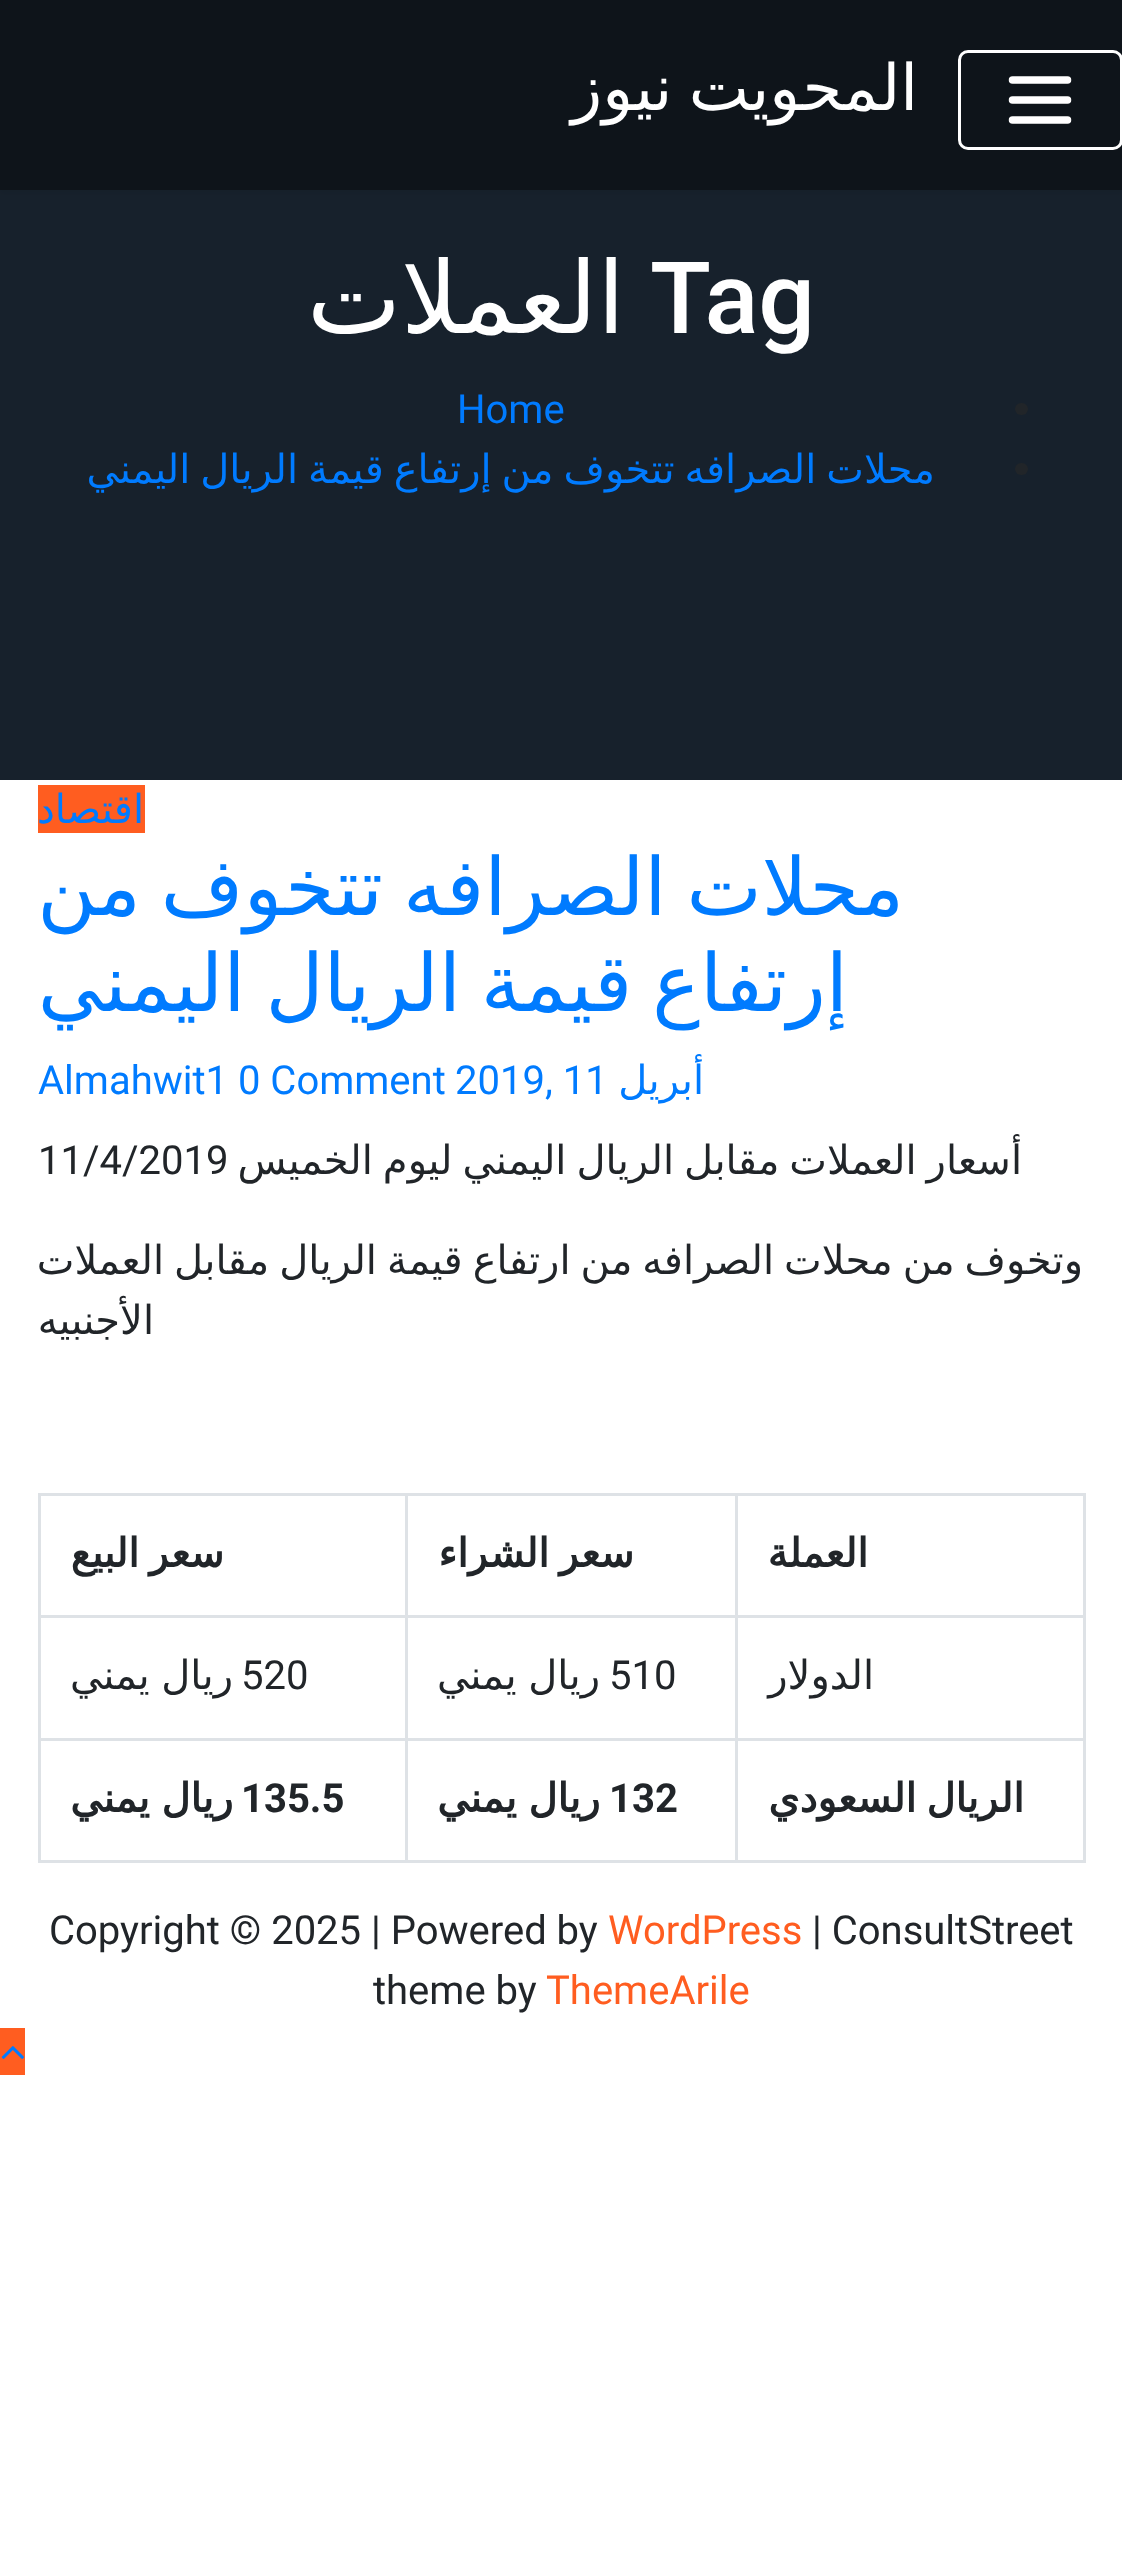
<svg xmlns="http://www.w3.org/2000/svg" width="1122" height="2550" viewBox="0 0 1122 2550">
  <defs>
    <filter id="blur1" x="-50%" y="-200%" width="200%" height="500%"><feGaussianBlur stdDeviation="2.5"/></filter>
  </defs>
  <rect width="100%" height="100%" fill="#ffffff"/>
  <rect x="0" y="190" width="1122" height="590" fill="#17212c"/>
  <rect x="0" y="3" width="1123" height="190" fill="#000000" fill-opacity="0.05" filter="url(#blur1)"/>
  <rect x="0" y="0" width="1122" height="190" fill="#0e141a"/>
  <rect x="959.5" y="51.5" width="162" height="97" rx="8.5" fill="none" stroke="#ffffff" stroke-width="3"/>
  <path d="M1012.5 80H1067.5M1012.5 100H1067.5M1012.5 120H1067.5" fill="none" stroke="#ffffff" stroke-width="7.5" stroke-linecap="round"/>
  <text x="918" y="110" word-spacing="-4" font-family="DejaVu Sans" font-size="64" direction="rtl" fill="#ffffff">المحويت نيوز</text>
  <text x="650" y="333" font-family="Roboto" font-size="100" font-weight="500" fill="#ffffff">Tag</text>
  <text x="625" y="333" font-family="DejaVu Sans" font-size="100" direction="rtl" fill="#ffffff">العملات</text>
  <rect x="1015" y="403" width="13" height="12" rx="6" fill="#212529"/>
  <text x="457" y="423" font-family="Roboto" font-size="40" fill="#007bff">Home</text>
  <rect x="1015" y="463" width="13" height="12" rx="6" fill="#212529"/>
  <text x="935" y="483" word-spacing="-2.75" font-family="DejaVu Sans" font-size="40" direction="rtl" fill="#007bff">محلات الصرافه تتخوف من إرتفاع قيمة الريال اليمني</text>
  <rect x="38" y="785" width="107" height="48" fill="#ff5d20"/>
  <text x="144" y="823" font-family="DejaVu Sans" font-size="40" direction="rtl" fill="#007bff">اقتصاد</text>
  <text x="904" y="915" word-spacing="-5.5" font-family="DejaVu Sans" font-size="80" direction="rtl" fill="#007bff">محلات الصرافه تتخوف من</text>
  <text x="848" y="1011" word-spacing="-5.5" font-family="DejaVu Sans" font-size="80" direction="rtl" fill="#007bff">إرتفاع قيمة الريال اليمني</text>
  <text x="704" y="1094" font-family="DejaVu Sans" font-size="40" direction="rtl" fill="#007bff">أبريل</text>
  <text x="455" y="1094" font-family="Roboto" font-size="40" fill="#007bff">2019, 11</text>
  <text x="38" y="1094" font-family="Roboto" font-size="40" fill="#007bff">Almahwit1 0 Comment</text>
  <text x="1022" y="1174" word-spacing="-2.75" font-family="DejaVu Sans" font-size="40" direction="rtl" fill="#212529">أسعار العملات مقابل الريال اليمني ليوم الخميس</text>
  <text x="38" y="1174" font-family="Roboto" font-size="40" fill="#212529">11/4/2019</text>
  <text x="1083" y="1274" word-spacing="-2.75" font-family="DejaVu Sans" font-size="40" direction="rtl" fill="#212529">وتخوف من محلات الصرافه من ارتفاع قيمة الريال مقابل العملات</text>
  <text x="154" y="1334" font-family="DejaVu Sans" font-size="40" direction="rtl" fill="#212529">الأجنبيه</text>
  <rect x="38" y="1493" width="1047" height="3" fill="#dee2e6"/>
  <rect x="1083" y="1493" width="3" height="370" fill="#dee2e6"/>
  <rect x="38" y="1860" width="1047" height="3" fill="#dee2e6"/>
  <rect x="38" y="1493" width="3" height="370" fill="#dee2e6"/>
  <text x="868" y="1567" font-family="DejaVu Sans" font-size="40" font-weight="bold" direction="rtl" fill="#212529">العملة</text>
  <rect x="38" y="1615" width="370" height="3" fill="#dee2e6"/>
  <rect x="38" y="1738" width="370" height="3" fill="#dee2e6"/>
  <rect x="405" y="1738" width="3" height="125" fill="#dee2e6"/>
  <rect x="405" y="1738" width="333" height="3" fill="#dee2e6"/>
  <rect x="405" y="1615" width="3" height="125" fill="#dee2e6"/>
  <rect x="405" y="1615" width="333" height="3" fill="#dee2e6"/>
  <rect x="735" y="1738" width="3" height="125" fill="#dee2e6"/>
  <rect x="735" y="1738" width="350" height="3" fill="#dee2e6"/>
  <rect x="735" y="1615" width="3" height="125" fill="#dee2e6"/>
  <rect x="735" y="1615" width="350" height="3" fill="#dee2e6"/>
  <rect x="735" y="1493" width="3" height="125" fill="#dee2e6"/>
  <text x="634" y="1567" word-spacing="-2.75" font-family="DejaVu Sans" font-size="40" font-weight="bold" direction="rtl" fill="#212529">سعر الشراء</text>
  <rect x="405" y="1493" width="3" height="125" fill="#dee2e6"/>
  <text x="224" y="1567" word-spacing="-2.75" font-family="DejaVu Sans" font-size="40" font-weight="bold" direction="rtl" fill="#212529">سعر البيع</text>
  <text x="874" y="1689" font-family="DejaVu Sans" font-size="40" direction="rtl" fill="#212529">الدولار</text>
  <text x="609" y="1689" font-family="Roboto" font-size="40" fill="#212529">510</text>
  <text x="600" y="1689" word-spacing="-1" font-family="DejaVu Sans" font-size="40" direction="rtl" fill="#212529">ريال يمني</text>
  <text x="241" y="1689" font-family="Roboto" font-size="40" fill="#212529">520</text>
  <text x="233" y="1689" word-spacing="-1" font-family="DejaVu Sans" font-size="40" direction="rtl" fill="#212529">ريال يمني</text>
  <text x="1024" y="1812" word-spacing="-2.75" font-family="DejaVu Sans" font-size="40" font-weight="bold" direction="rtl" fill="#212529">الريال السعودي</text>
  <text x="609" y="1812" font-family="Roboto" font-size="40" font-weight="bold" fill="#212529">132</text>
  <text x="600" y="1812" word-spacing="-1" font-family="DejaVu Sans" font-size="40" font-weight="bold" direction="rtl" fill="#212529">ريال يمني</text>
  <text x="241" y="1812" font-family="Roboto" font-size="40" font-weight="bold" fill="#212529">135.5</text>
  <text x="233" y="1812" word-spacing="-1" font-family="DejaVu Sans" font-size="40" font-weight="bold" direction="rtl" fill="#212529">ريال يمني</text>
  <text x="812" y="1944" font-family="Roboto" font-size="40" fill="#212529">| ConsultStreet</text>
  <text x="608" y="1944" font-family="Roboto" font-size="40" fill="#ff5d20">WordPress</text>
  <text x="49" y="1944" font-family="Roboto" font-size="40" fill="#212529">Copyright © 2025 | Powered by</text>
  <text x="546" y="2004" font-family="Roboto" font-size="40" fill="#ff5d20">ThemeArile</text>
  <text x="373" y="2004" font-family="Roboto" font-size="40" fill="#212529">theme by</text>
  <rect x="0" y="2028" width="25" height="47" fill="#ff5d20"/>
  <image x="1" y="2046" width="23" height="13" href="img1.png"/>
</svg>
